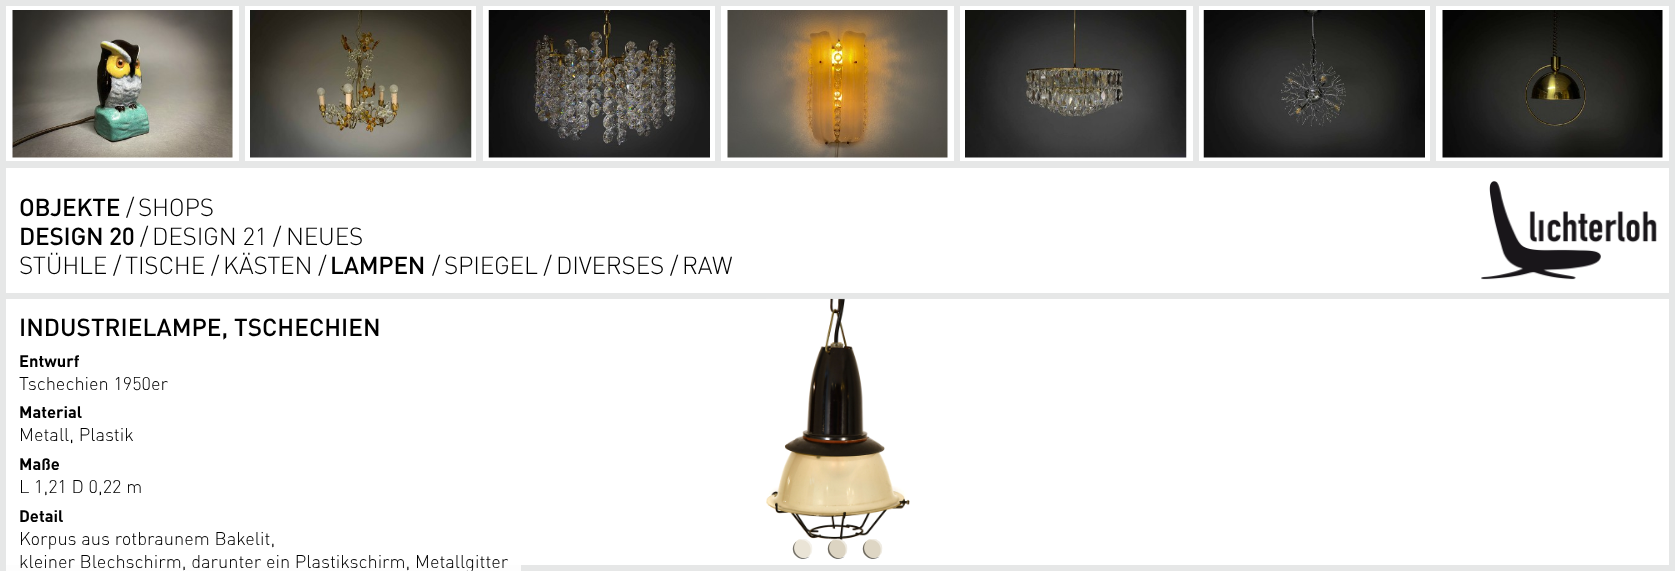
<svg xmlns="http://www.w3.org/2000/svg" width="1675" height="571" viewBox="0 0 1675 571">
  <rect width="100%" height="100%" fill="#e6e7e7"/>
  <rect x="6" y="6" width="233" height="155" fill="#ffffff"/>
  <image x="12" y="10" width="221" height="148" href="img1.png"/>
  <rect x="245" y="6" width="231" height="155" fill="#ffffff"/>
  <image x="250" y="10" width="222" height="148" href="img2.png"/>
  <rect x="483" y="6" width="232" height="155" fill="#ffffff"/>
  <image x="488" y="10" width="222" height="148" href="img3.png"/>
  <rect x="721" y="6" width="233" height="155" fill="#ffffff"/>
  <image x="727" y="10" width="221" height="148" href="img4.png"/>
  <rect x="960" y="6" width="233" height="155" fill="#ffffff"/>
  <image x="965" y="10" width="222" height="148" href="img5.png"/>
  <rect x="1199" y="6" width="231" height="155" fill="#ffffff"/>
  <image x="1203" y="10" width="222" height="148" href="img6.png"/>
  <rect x="1436" y="6" width="233" height="155" fill="#ffffff"/>
  <image x="1442" y="10" width="221" height="148" href="img7.png"/>
  <rect x="6" y="168" width="1663" height="125" fill="#ffffff"/>
  <text x="19" y="216" font-family="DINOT" font-size="24.4" font-weight="500" letter-spacing="-0.25" fill="#000000">OBJEKTE</text>
  <text x="126" y="216" font-family="DINOT" font-size="24.4" font-weight="300" letter-spacing="-0.25" fill="#000000">/</text>
  <text x="138" y="216" font-family="DINOT" font-size="24.4" font-weight="300" letter-spacing="-0.25" fill="#000000">SHOPS</text>
  <text x="19" y="245" font-family="DINOT" font-size="24.4" font-weight="500" letter-spacing="-0.25" fill="#000000">DESIGN 20</text>
  <text x="140" y="245" font-family="DINOT" font-size="24.4" font-weight="300" letter-spacing="-0.25" fill="#000000">/</text>
  <text x="152" y="245" font-family="DINOT" font-size="24.4" font-weight="300" letter-spacing="-0.25" fill="#000000">DESIGN 21 /</text>
  <text x="286" y="245" font-family="DINOT" font-size="24.4" font-weight="300" letter-spacing="-0.25" fill="#000000">NEUES</text>
  <text x="19" y="274" font-family="DINOT" font-size="24.4" font-weight="300" letter-spacing="-0.25" fill="#000000">STÜHLE /</text>
  <text x="125" y="274" font-family="DINOT" font-size="24.4" font-weight="300" letter-spacing="-0.25" fill="#000000">TISCHE /</text>
  <text x="223" y="274" font-family="DINOT" font-size="24.4" font-weight="300" letter-spacing="-0.25" fill="#000000">KÄSTEN /</text>
  <text x="330" y="274" font-family="DINOT" font-size="24.4" font-weight="500" letter-spacing="-0.25" fill="#000000">LAMPEN</text>
  <text x="432" y="274" font-family="DINOT" font-size="24.4" font-weight="300" letter-spacing="-0.25" fill="#000000">/</text>
  <text x="444" y="274" font-family="DINOT" font-size="24.4" font-weight="300" letter-spacing="-0.25" fill="#000000">SPIEGEL /</text>
  <text x="556" y="274" font-family="DINOT" font-size="24.4" font-weight="300" letter-spacing="-0.25" fill="#000000">DIVERSES /</text>
  <text x="682" y="274" font-family="DINOT" font-size="24.4" font-weight="300" letter-spacing="-0.25" fill="#000000">RAW</text>
  <image x="1481" y="181" width="176" height="99" href="img8.png"/>
  <rect x="6" y="299" width="1663" height="266" fill="#ffffff"/>
  <rect x="6" y="565" width="515" height="6" fill="#fdfdfd"/>
  <image x="766" y="298" width="144" height="244" href="img9.png"/>
  <text x="19" y="336" font-family="DINOT" font-size="24.4" font-weight="500" fill="#000000">INDUSTRIELAMPE, TSCHECHIEN</text>
  <text x="19" y="367" font-family="DINOT" font-size="16.5" font-weight="bold" fill="#000000">Entwurf</text>
  <text x="19" y="390" font-family="DINOT" font-size="18.25" font-weight="300" fill="#000000">Tschechien 1950er</text>
  <text x="19" y="418" font-family="DINOT" font-size="16.5" font-weight="bold" fill="#000000">Material</text>
  <text x="19" y="441" font-family="DINOT" font-size="18.25" font-weight="300" fill="#000000">Metall, Plastik</text>
  <text x="19" y="470" font-family="DINOT" font-size="16.5" font-weight="bold" fill="#000000">Maße</text>
  <text x="19" y="493" font-family="DINOT" font-size="18.25" font-weight="300" fill="#000000">L 1,21 D 0,22 m</text>
  <text x="19" y="522" font-family="DINOT" font-size="16.5" font-weight="bold" fill="#000000">Detail</text>
  <text x="19" y="545" font-family="DINOT" font-size="18.25" font-weight="300" fill="#000000">Korpus aus rotbraunem Bakelit,</text>
  <text x="19" y="568" font-family="DINOT" font-size="18.25" font-weight="300" fill="#000000">kleiner Blechschirm, darunter ein Plastikschirm, Metallgitter</text>
  <image x="792" y="539" width="21" height="20" href="img10.png"/>
  <path d="M801 540C811.5 540 813.5 553.5 807 558C820 553 810 533 798 540.5Z" fill="#ffffff" fill-opacity="0.5"/>
  <path d="M810 556C801 563 789 551 796.5 541.5C786 550.5 800.5 565.5 810 556Z" fill="#000000" fill-opacity="0.5"/>
  <image x="827" y="538" width="21" height="21" href="img11.png"/>
  <path d="M836 540C846.5 540 848.5 553.5 842 558C855 553 845 533 833 540.5Z" fill="#ffffff" fill-opacity="0.5"/>
  <path d="M845 556C836 563 824 551 831.5 541.5C821 550.5 835.5 565.5 845 556Z" fill="#000000" fill-opacity="0.5"/>
  <image x="862" y="539" width="21" height="20" href="img12.png"/>
  <path d="M871 540C881.5 540 883.5 553.5 877 558C890 553 880 533 868 540.5Z" fill="#ffffff" fill-opacity="0.5"/>
  <path d="M880 556C871 563 859 551 866.5 541.5C856 550.5 870.5 565.5 880 556Z" fill="#000000" fill-opacity="0.5"/>
</svg>
